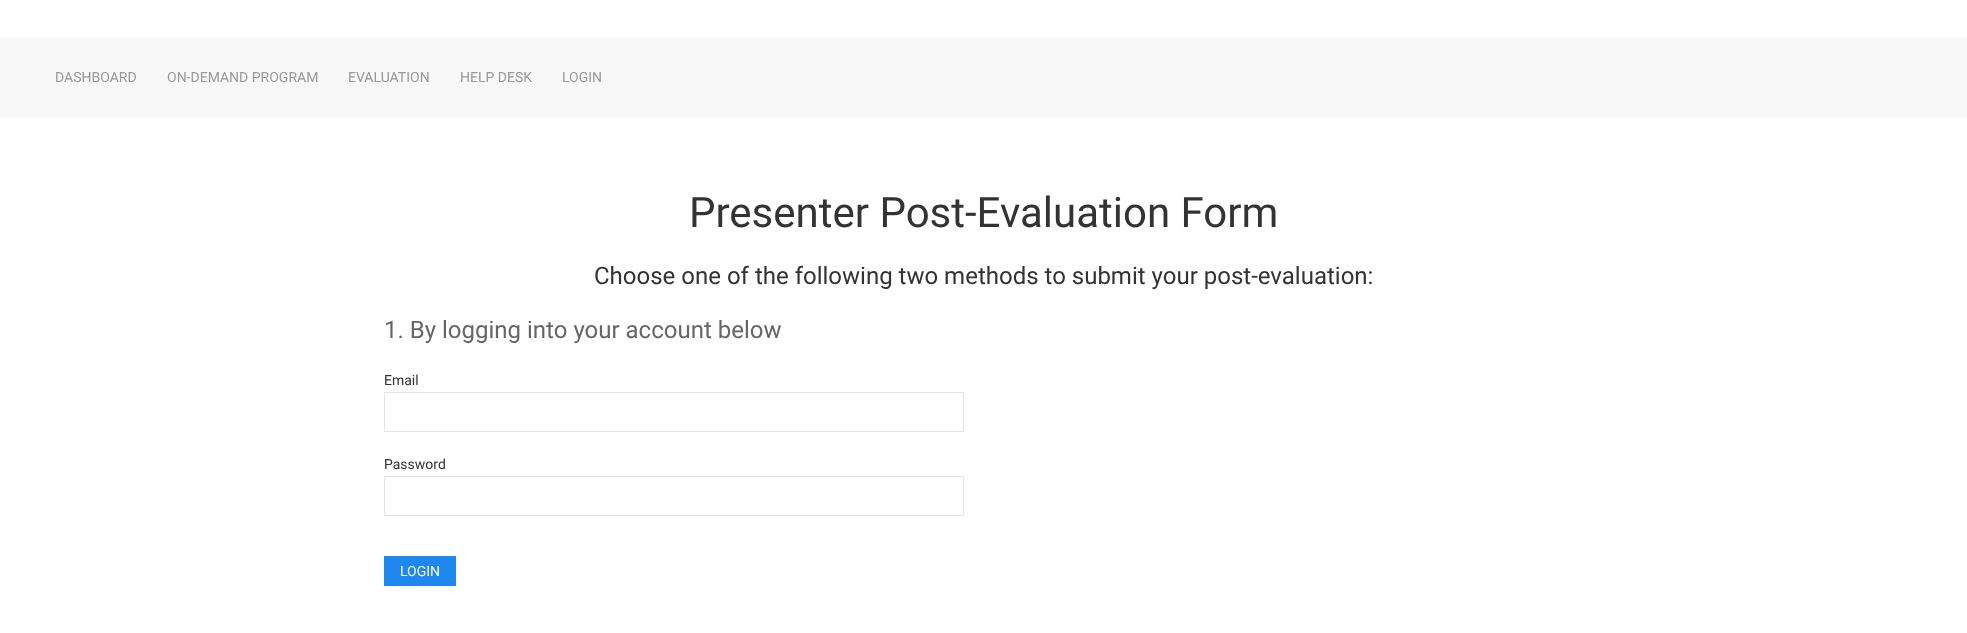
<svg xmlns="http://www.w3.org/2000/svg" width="1967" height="633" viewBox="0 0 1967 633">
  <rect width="100%" height="100%" fill="#ffffff"/>
  <rect x="0" y="38" width="1967" height="80" fill="#f8f8f8"/>
  <text x="55" y="82" font-family="Roboto" font-size="14" fill="#999999">DASHBOARD</text>
  <text x="167" y="82" font-family="Roboto" font-size="14" fill="#999999">ON-DEMAND PROGRAM</text>
  <text x="348" y="82" font-family="Roboto" font-size="14" fill="#999999">EVALUATION</text>
  <text x="460" y="82" font-family="Roboto" font-size="14" fill="#999999">HELP DESK</text>
  <text x="562" y="82" font-family="Roboto" font-size="14" fill="#999999">LOGIN</text>
  <text x="689" y="227" font-family="Roboto" font-size="42" fill="#333333">Presenter Post-Evaluation Form</text>
  <text x="594" y="284" font-family="Roboto" font-size="24" fill="#333333">Choose one of the following two methods to submit your post-evaluation:</text>
  <text x="384" y="338" font-family="Roboto" font-size="24" fill="#666666">1. By logging into your account below</text>
  <text x="384" y="385" font-family="Roboto" font-size="14" fill="#333333">Email</text>
  <rect x="384.5" y="392.5" width="579" height="39" fill="none" stroke="#e5e5e5"/>
  <text x="384" y="469" font-family="Roboto" font-size="14" fill="#333333">Password</text>
  <rect x="384.5" y="476.5" width="579" height="39" fill="none" stroke="#e5e5e5"/>
  <rect x="384" y="556" width="72" height="30" fill="#1e87f0"/>
  <text x="400" y="576" font-family="Roboto" font-size="14" fill="#ffffff">LOGIN</text>
</svg>
